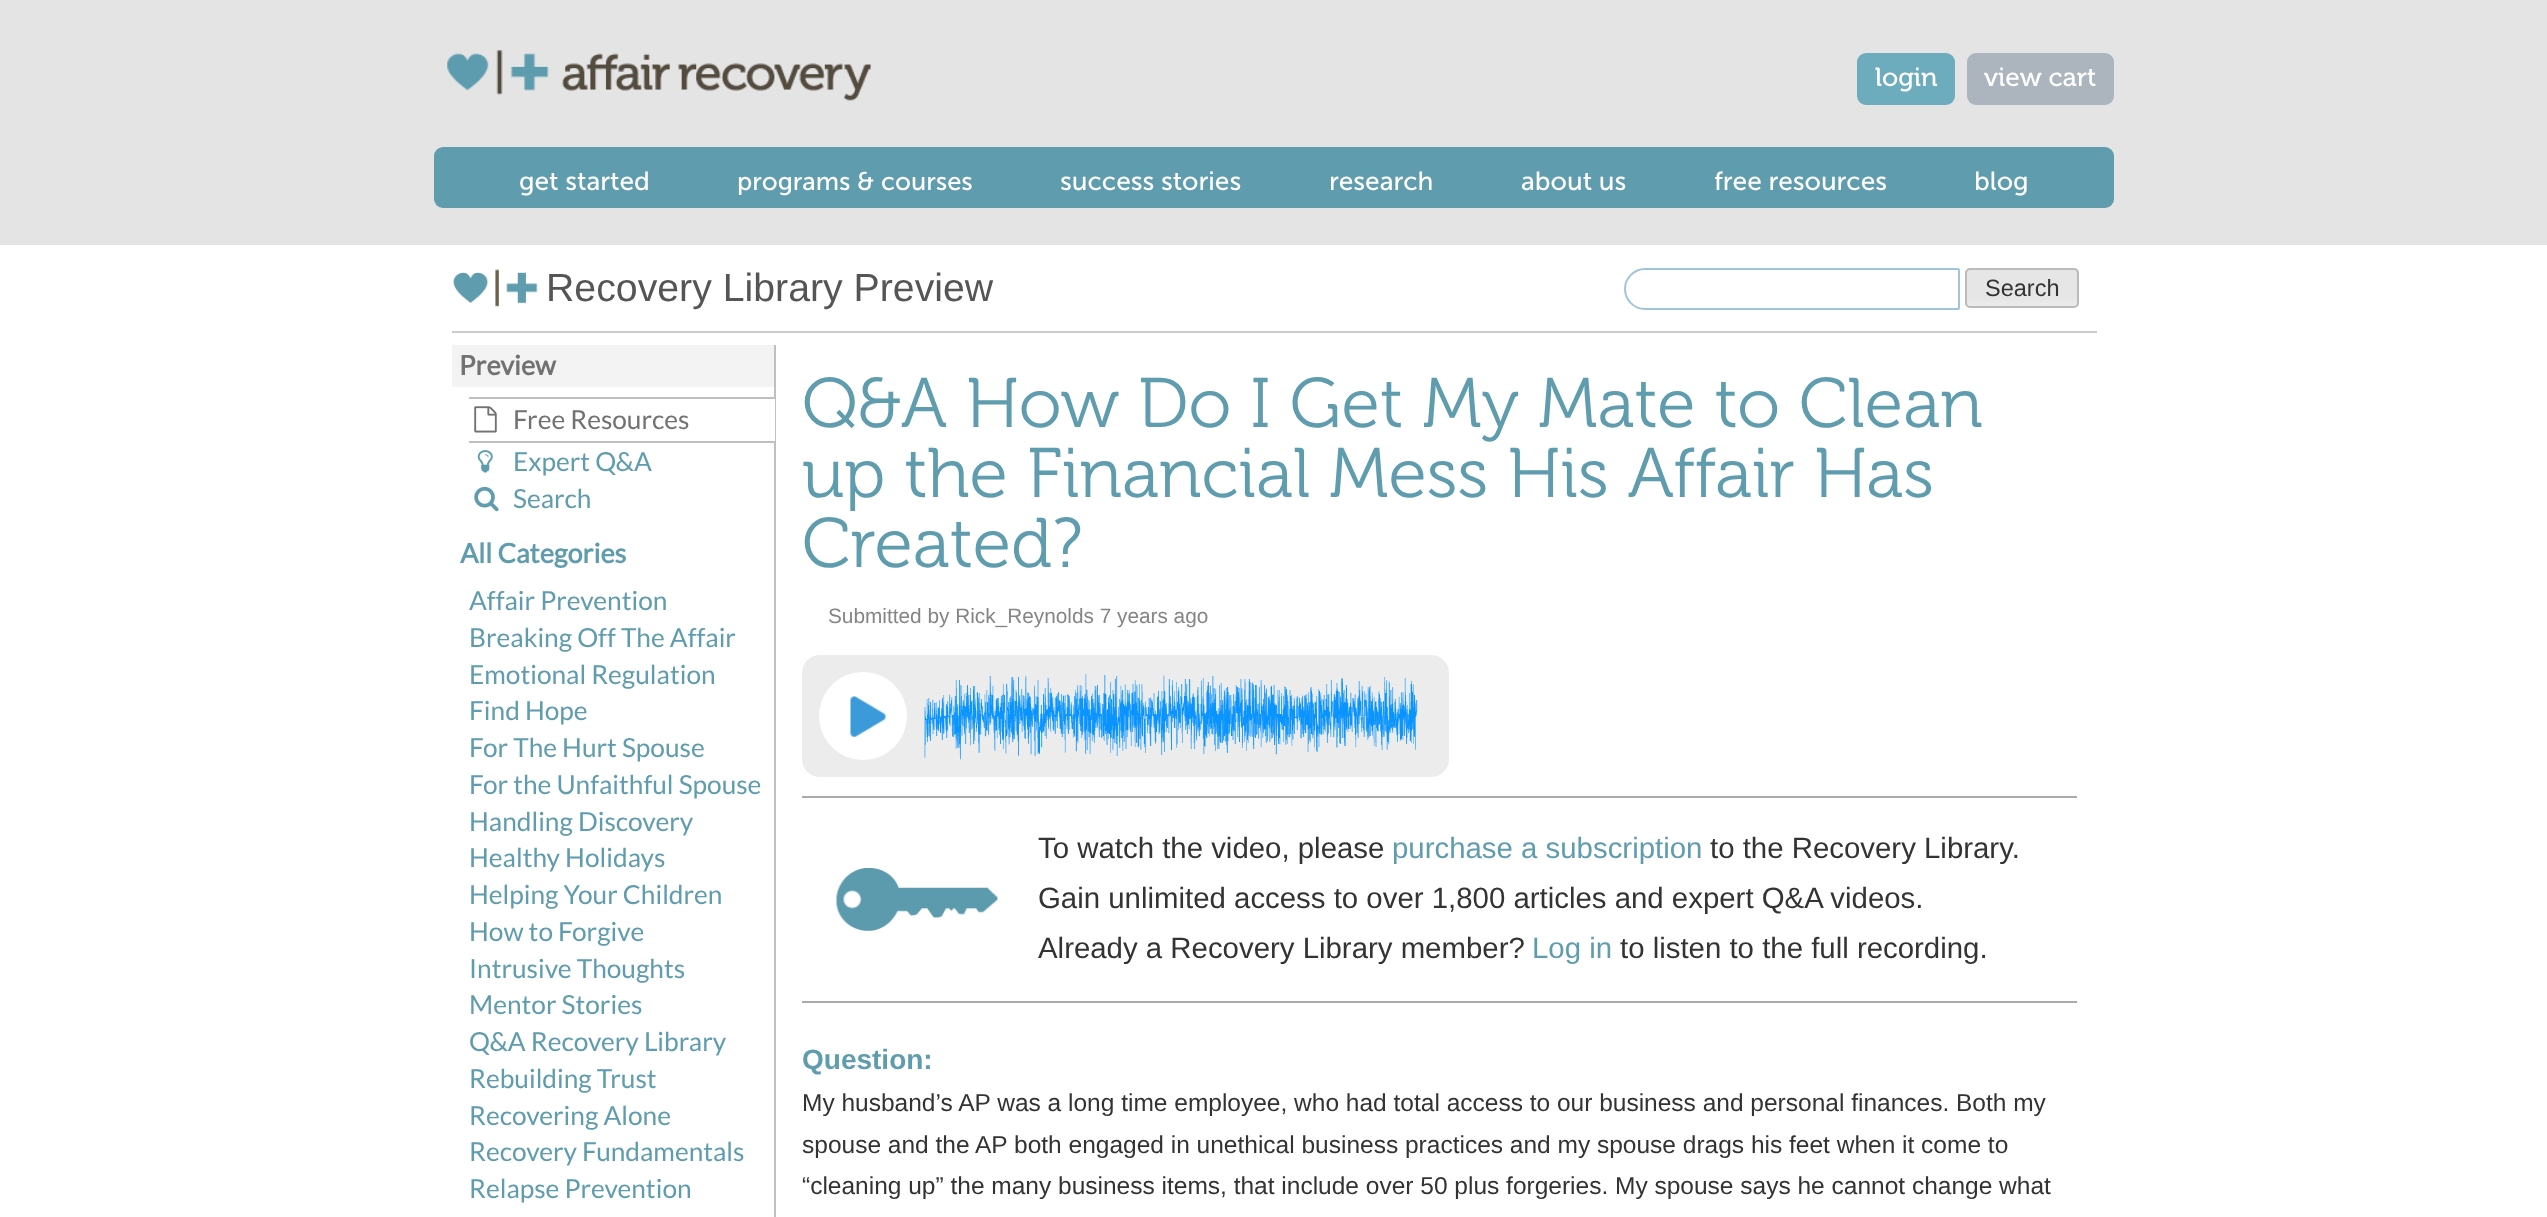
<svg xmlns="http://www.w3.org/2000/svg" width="2547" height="1217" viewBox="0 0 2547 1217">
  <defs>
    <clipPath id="clip1"><rect x="1965" y="268" width="114" height="40" rx="5"/></clipPath>
    <linearGradient id="g1" gradientUnits="userSpaceOnUse" x1="2022" y1="306" x2="2022" y2="270"><stop offset="0" stop-color="#ececec"/><stop offset="0.22" stop-color="#e6e6e6"/><stop offset="1" stop-color="#e6e6e6"/></linearGradient>
  </defs>
  <rect width="100%" height="100%" fill="#ffffff"/>
  <rect x="0" y="0" width="2547" height="245" fill="#e4e4e4"/>
  <image x="447" y="50" width="424" height="51" href="img1.png"/>
  <rect x="1857" y="53" width="98" height="52" rx="9" fill="#6dacbd"/>
  <text x="1875" y="86" font-family="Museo" font-size="26.25" fill="#ffffff">login</text>
  <rect x="1967" y="53" width="147" height="52" rx="9" fill="#acb5bd"/>
  <text x="1984" y="86" font-family="Museo" font-size="26.25" fill="#ffffff">view cart</text>
  <rect x="434" y="147" width="1680" height="61" rx="9" fill="#5e9cae"/>
  <text x="519" y="190" font-family="Museo Sans" font-size="26.25" fill="#ffffff">get started</text>
  <text x="737" y="190" font-family="Museo Sans" font-size="25.5" fill="#ffffff">programs &amp; courses</text>
  <text x="1060" y="190" font-family="Museo Sans" font-size="26.25" fill="#ffffff">success stories</text>
  <text x="1329" y="190" font-family="Museo Sans" font-size="26.25" fill="#ffffff">research</text>
  <text x="1521" y="190" font-family="Museo Sans" font-size="26.25" fill="#ffffff">about us</text>
  <text x="1714" y="190" font-family="Museo Sans" font-size="26.25" fill="#ffffff">free resources</text>
  <text x="1974" y="190" font-family="Museo Sans" font-size="26.25" fill="#ffffff">blog</text>
  <rect x="452" y="331" width="1645" height="2" fill="#cccccc"/>
  <image x="453" y="269" width="85" height="38" href="img2.png"/>
  <text x="546" y="301" font-family="Liberation Sans" font-size="39.25" fill="#555555">Recovery Library Preview</text>
  <path d="M1645 269H1958C1958.5 269 1959 269.5 1959 270V308C1959 308.5 1958.5 309 1958 309H1645C1634 309 1625 300 1625 289C1625 278 1634 269 1645 269Z" fill="none" stroke="#a0c5da" stroke-width="2"/>
  <g clip-path="url(#clip1)">
    <rect x="1965" y="270" width="114" height="36" fill="url(#g1)"/>
  </g>
  <rect x="1966" y="269" width="112" height="38" rx="4" fill="none" stroke="#bbbbbb" stroke-width="2"/>
  <text x="1985" y="296" font-family="Liberation Sans" font-size="23.5" fill="#333333">Search</text>
  <rect x="774" y="345" width="2" height="872" fill="#c0c0c0"/>
  <rect x="452" y="345" width="322" height="42" fill="#f3f3f3"/>
  <text x="459" y="375" font-family="Lato" font-size="27" font-weight="bold" fill="#727272">Preview</text>
  <rect x="774" y="399" width="1" height="42" fill="#ffffff"/>
  <rect x="469" y="397" width="306" height="2" fill="#c0c0c0"/>
  <rect x="469" y="441" width="306" height="2" fill="#c0c0c0"/>
  <image x="474" y="406" width="23" height="27" href="img3.png"/>
  <text x="513" y="429" font-family="Lato" font-size="26.25" fill="#727272">Free Resources</text>
  <image x="477" y="450" width="16" height="23" href="img4.png"/>
  <text x="513" y="471" font-family="Lato" font-size="26.25" fill="#5e9cae">Expert Q&amp;A</text>
  <image x="474" y="486" width="25" height="26" href="img5.png"/>
  <text x="513" y="508" font-family="Lato" font-size="26.25" fill="#5e9cae">Search</text>
  <text x="460" y="563" font-family="Lato" font-size="27" font-weight="bold" fill="#5e9cae">All Categories</text>
  <text x="469" y="610" font-family="Lato" font-size="26.25" fill="#5e9cae">Affair Prevention</text>
  <text x="469" y="647" font-family="Lato" font-size="26.25" fill="#5e9cae">Breaking Off The Affair</text>
  <text x="469" y="684" font-family="Lato" font-size="26.25" fill="#5e9cae">Emotional Regulation</text>
  <text x="469" y="720" font-family="Lato" font-size="26.25" fill="#5e9cae">Find Hope</text>
  <text x="469" y="757" font-family="Lato" font-size="26.25" fill="#5e9cae">For The Hurt Spouse</text>
  <text x="469" y="794" font-family="Lato" font-size="26.25" fill="#5e9cae">For the Unfaithful Spouse</text>
  <text x="469" y="831" font-family="Lato" font-size="26.25" fill="#5e9cae">Handling Discovery</text>
  <text x="469" y="867" font-family="Lato" font-size="26.25" fill="#5e9cae">Healthy Holidays</text>
  <text x="469" y="904" font-family="Lato" font-size="26.25" fill="#5e9cae">Helping Your Children</text>
  <text x="469" y="941" font-family="Lato" font-size="26.25" fill="#5e9cae">How to Forgive</text>
  <text x="469" y="978" font-family="Lato" font-size="26.25" fill="#5e9cae">Intrusive Thoughts</text>
  <text x="469" y="1014" font-family="Lato" font-size="26.25" fill="#5e9cae">Mentor Stories</text>
  <text x="469" y="1051" font-family="Lato" font-size="26.25" fill="#5e9cae">Q&amp;A Recovery Library</text>
  <text x="469" y="1088" font-family="Lato" font-size="26.25" fill="#5e9cae">Rebuilding Trust</text>
  <text x="469" y="1125" font-family="Lato" font-size="26.25" fill="#5e9cae">Recovering Alone</text>
  <text x="469" y="1161" font-family="Lato" font-size="26.25" fill="#5e9cae">Recovery Fundamentals</text>
  <text x="469" y="1198" font-family="Lato" font-size="26.25" fill="#5e9cae">Relapse Prevention</text>
  <text x="802" y="427" font-family="Museo" font-size="70" font-weight="300" fill="#5e9cae">Q&amp;A How Do I Get My Mate to Clean</text>
  <text x="802" y="497" font-family="Museo" font-size="70" font-weight="300" fill="#5e9cae">up the Financial Mess His Affair Has</text>
  <text x="802" y="567" font-family="Museo" font-size="70" font-weight="300" fill="#5e9cae">Created?</text>
  <text x="828" y="623" font-family="Liberation Sans" font-size="20.8" fill="#858585">Submitted by Rick_Reynolds 7 years ago</text>
  <rect x="802" y="655" width="647" height="122" rx="18" fill="#ececec"/>
  <image x="924" y="673" width="494" height="87" href="img6.png"/>
  <circle cx="863" cy="716" r="44" fill="#ffffff"/>
  <image x="850" y="696" width="36" height="41" href="img7.png"/>
  <image x="836" y="868" width="162" height="63" href="img8.png"/>
  <rect x="802" y="796" width="1275" height="2" fill="#aaaaaa"/>
  <rect x="802" y="1001" width="1275" height="2" fill="#aaaaaa"/>
  <text x="1038" y="858" font-family="Liberation Sans" font-size="29.4" fill="#333333">To watch the video, please</text>
  <text x="1392" y="858" font-family="Liberation Sans" font-size="29.4" fill="#5e9cae">purchase a subscription</text>
  <text x="1710" y="858" font-family="Liberation Sans" font-size="29.4" fill="#333333">to the Recovery Library.</text>
  <text x="1038" y="908" font-family="Liberation Sans" font-size="29.4" fill="#333333">Gain unlimited access to over 1,800 articles and expert Q&amp;A videos.</text>
  <text x="1038" y="958" font-family="Liberation Sans" font-size="29.4" fill="#333333">Already a Recovery Library member?</text>
  <text x="1532" y="958" font-family="Liberation Sans" font-size="29.4" fill="#5e9cae">Log in</text>
  <text x="1620" y="958" font-family="Liberation Sans" font-size="29.4" fill="#333333">to listen to the full recording.</text>
  <text x="802" y="1069" font-family="Liberation Sans" font-size="28" font-weight="bold" fill="#5e9cae">Question:</text>
  <text x="802" y="1111" font-family="Liberation Sans" font-size="24.5" fill="#333333">My husband’s AP was a long time employee, who had total access to our business and personal finances. Both my</text>
  <text x="802" y="1153" font-family="Liberation Sans" font-size="24.5" fill="#333333">spouse and the AP both engaged in unethical business practices and my spouse drags his feet when it come to</text>
  <text x="802" y="1194" font-family="Liberation Sans" font-size="24.5" fill="#333333">“cleaning up” the many business items, that include over 50 plus forgeries. My spouse says he cannot change what</text>
</svg>
